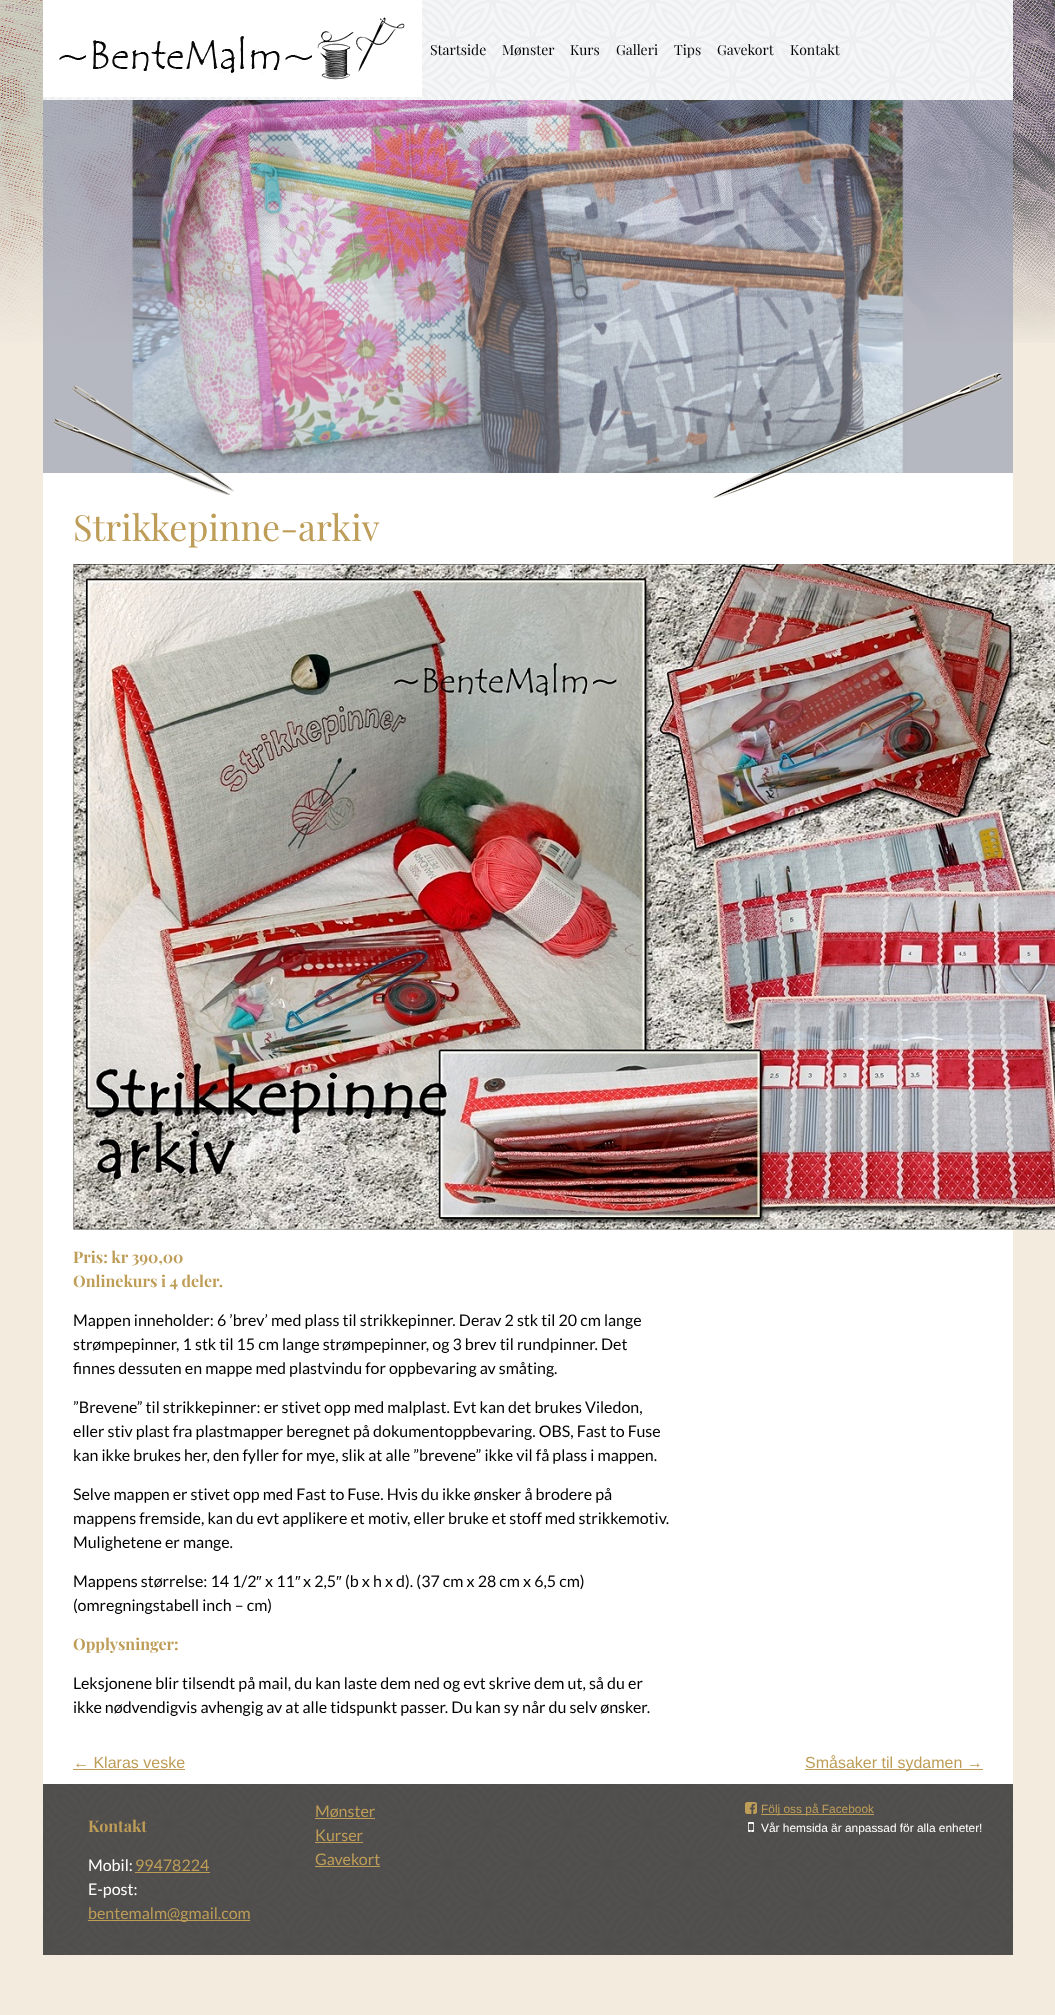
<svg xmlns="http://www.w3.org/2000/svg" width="1055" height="2015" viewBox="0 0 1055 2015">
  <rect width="100%" height="100%" fill="#f2ebde"/>
  <image x="0" y="0" width="1055" height="343" href="img1.png"/>
  <image x="43" y="0" width="970" height="100" href="img2.png"/>
  <rect x="43" y="0" width="379" height="97" fill="#ffffff"/>
  <image x="59" y="17" width="346" height="63" href="img3.png"/>
  <text x="430" y="55" font-family="Playfair Display" font-size="14" fill="#000000">Startside</text>
  <text x="502" y="55" font-family="Playfair Display" font-size="14" fill="#000000">Mønster</text>
  <text x="570" y="55" font-family="Playfair Display" font-size="14" fill="#000000">Kurs</text>
  <text x="616" y="55" font-family="Playfair Display" font-size="14" fill="#000000">Galleri</text>
  <text x="674" y="55" font-family="Playfair Display" font-size="14" fill="#000000">Tips</text>
  <text x="717" y="55" font-family="Playfair Display" font-size="14" fill="#000000">Gavekort</text>
  <text x="790" y="55" font-family="Playfair Display" font-size="14" fill="#000000">Kontakt</text>
  <image x="43" y="100" width="970" height="373" href="img4.png"/>
  <rect x="43" y="473" width="970" height="1311" fill="#ffffff"/>
  <image x="53" y="385" width="181" height="110" href="img5.png"/>
  <image x="713" y="373" width="290" height="125" href="img6.png"/>
  <text x="73" y="541" font-family="Playfair Display" font-size="36" fill="#be9d58">Strikkepinne-arkiv</text>
  <image x="73" y="564" width="982" height="666" href="img7.png"/>
  <text x="73" y="1263" font-family="Playfair Display" font-size="16" font-weight="bold" fill="#be9d58">Pris: kr 390,00</text>
  <text x="73" y="1287" font-family="Playfair Display" font-size="16" font-weight="bold" fill="#be9d58">Onlinekurs i 4 deler.</text>
  <text x="73" y="1326" font-family="Lato" font-size="16" fill="#000000">Mappen inneholder: 6 ’brev’ med plass til strikkepinner. Derav 2 stk til 20 cm lange</text>
  <text x="73" y="1350" font-family="Lato" font-size="16" fill="#000000">strømpepinner, 1 stk til 15 cm lange strømpepinner, og 3 brev til rundpinner. Det</text>
  <text x="73" y="1374" font-family="Lato" font-size="16" fill="#000000">finnes dessuten en mappe med plastvindu for oppbevaring av småting.</text>
  <text x="73" y="1413" font-family="Lato" font-size="16" fill="#000000">”Brevene” til strikkepinner: er stivet opp med malplast. Evt kan det brukes Viledon,</text>
  <text x="73" y="1437" font-family="Lato" font-size="16" fill="#000000">eller stiv plast fra plastmapper beregnet på dokumentoppbevaring. OBS, Fast to Fuse</text>
  <text x="73" y="1461" font-family="Lato" font-size="16" fill="#000000">kan ikke brukes her, den fyller for mye, slik at alle ”brevene” ikke vil få plass i mappen.</text>
  <text x="73" y="1500" font-family="Lato" font-size="16" fill="#000000">Selve mappen er stivet opp med Fast to Fuse. Hvis du ikke ønsker å brodere på</text>
  <text x="73" y="1524" font-family="Lato" font-size="16" fill="#000000">mappens fremside, kan du evt applikere et motiv, eller bruke et stoff med strikkemotiv.</text>
  <text x="73" y="1548" font-family="Lato" font-size="16" fill="#000000">Mulighetene er mange.</text>
  <text x="73" y="1587" font-family="Lato" font-size="16" fill="#000000">Mappens størrelse: 14 1/2</text>
  <text x="256" y="1587" font-family="Liberation Sans" font-size="16" fill="#000000">″</text>
  <text x="265" y="1587" font-family="Lato" font-size="16" fill="#000000">x 11</text>
  <text x="295" y="1587" font-family="Liberation Sans" font-size="16" fill="#000000">″</text>
  <text x="303" y="1587" font-family="Lato" font-size="16" fill="#000000">x 2,5</text>
  <text x="336" y="1587" font-family="Liberation Sans" font-size="16" fill="#000000">″</text>
  <text x="345" y="1587" font-family="Lato" font-size="16" fill="#000000">(b x h x d). (37 cm x 28 cm x 6,5 cm)</text>
  <text x="73" y="1611" font-family="Lato" font-size="16" fill="#000000">(omregningstabell inch – cm)</text>
  <text x="73" y="1650" font-family="Playfair Display" font-size="16" font-weight="bold" fill="#be9d58">Opplysninger:</text>
  <text x="73" y="1689" font-family="Lato" font-size="16" fill="#000000">Leksjonene blir tilsendt på mail, du kan laste dem ned og evt skrive dem ut, så du er</text>
  <text x="73" y="1713" font-family="Lato" font-size="16" fill="#000000">ikke nødvendigvis avhengig av at alle tidspunkt passer. Du kan sy når du selv ønsker.</text>
  <text x="73" y="1768" font-family="Liberation Sans" font-size="16" fill="#be9d58">← Klaras veske</text>
  <rect x="73" y="1769" width="112" height="1" fill="#be9d58"/>
  <rect x="805" y="1769" width="178" height="1" fill="#be9d58"/>
  <text x="805" y="1768" font-family="Liberation Sans" font-size="16" fill="#be9d58">Småsaker til sydamen →</text>
  <rect x="43" y="1784" width="970" height="171" fill="#1b1916"/>
  <image x="43" y="1784" width="970" height="171" href="img8.png"/>
  <text x="88" y="1832" font-family="Playfair Display" font-size="16" font-weight="bold" fill="#be9d58">Kontakt</text>
  <text x="88" y="1871" font-family="Lato" font-size="16" fill="#ffffff">Mobil:</text>
  <text x="135" y="1871" font-family="Lato" font-size="16" fill="#be9d58">99478224</text>
  <rect x="135" y="1872" width="75" height="1" fill="#be9d58"/>
  <text x="88" y="1895" font-family="Lato" font-size="16" fill="#ffffff">E-post:</text>
  <rect x="88" y="1920" width="162" height="1" fill="#be9d58"/>
  <text x="88" y="1919" font-family="Lato" font-size="16" fill="#be9d58">bentemalm@gmail.com</text>
  <text x="315" y="1817" font-family="Lato" font-size="16" fill="#be9d58">Mønster</text>
  <rect x="315" y="1818" width="60" height="1" fill="#be9d58"/>
  <text x="315" y="1841" font-family="Lato" font-size="16" fill="#be9d58">Kurser</text>
  <rect x="315" y="1842" width="48" height="1" fill="#be9d58"/>
  <text x="315" y="1865" font-family="Lato" font-size="16" fill="#be9d58">Gavekort</text>
  <rect x="315" y="1866" width="65" height="1" fill="#be9d58"/>
  <image x="745" y="1802" width="12" height="12" href="img9.png"/>
  <rect x="761" y="1814" width="113" height="1" fill="#be9d58"/>
  <text x="761" y="1813" font-family="Liberation Sans" font-size="11.9" fill="#be9d58">Följ oss på Facebook</text>
  <image x="748" y="1822" width="6" height="10" href="img10.png"/>
  <text x="761" y="1832" font-family="Liberation Sans" font-size="11.9" fill="#ffffff">Vår hemsida är anpassad för alla enheter!</text>
</svg>
